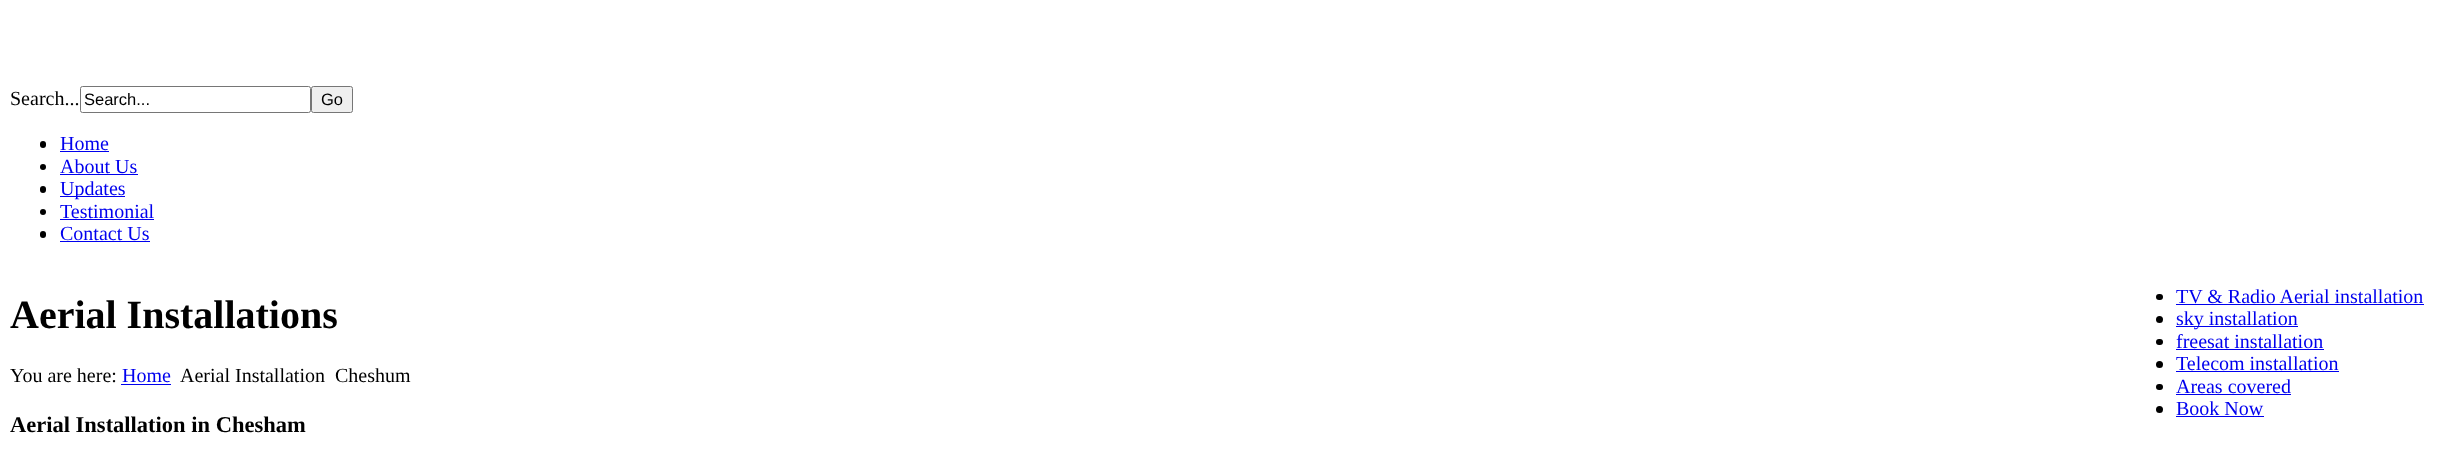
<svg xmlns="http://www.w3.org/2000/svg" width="2441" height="456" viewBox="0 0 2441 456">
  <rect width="100%" height="100%" fill="#ffffff"/>
  <text x="10" y="105" font-family="Liberation Serif" font-size="20" fill="#000000">Search...</text>
  <rect x="80.5" y="86.5" width="230" height="26" rx="2" fill="none" stroke="#767676"/>
  <text x="84" y="105" font-family="Liberation Sans" font-size="16.5" fill="#000000">Search...</text>
  <rect x="311.5" y="86.5" width="41" height="26" rx="2" fill="#efefef" stroke="#767676"/>
  <text x="321" y="105" font-family="Liberation Sans" font-size="16.5" fill="#000000">Go</text>
  <rect x="40" y="141" width="6" height="7" rx="3" fill="#000000"/>
  <text x="60" y="150" font-family="Liberation Serif" font-size="20" fill="#0000ee">Home</text>
  <rect x="60" y="151" width="49" height="1" fill="#0000ee"/>
  <circle cx="43" cy="167" r="3" fill="#000000"/>
  <text x="60" y="173" font-family="Liberation Serif" font-size="20" fill="#0000ee">About Us</text>
  <rect x="60" y="174" width="78" height="1" fill="#0000ee"/>
  <rect x="40" y="186" width="6" height="7" rx="3" fill="#000000"/>
  <rect x="60" y="196" width="65" height="1" fill="#0000ee"/>
  <text x="60" y="195" font-family="Liberation Serif" font-size="20" fill="#0000ee">Updates</text>
  <circle cx="43" cy="212" r="3" fill="#000000"/>
  <text x="60" y="218" font-family="Liberation Serif" font-size="20" fill="#0000ee">Testimonial</text>
  <rect x="60" y="219" width="94" height="1" fill="#0000ee"/>
  <rect x="40" y="231" width="6" height="7" rx="3" fill="#000000"/>
  <text x="60" y="240" font-family="Liberation Serif" font-size="20" fill="#0000ee">Contact Us</text>
  <rect x="60" y="241" width="90" height="1" fill="#0000ee"/>
  <text x="10" y="328" font-family="Liberation Serif" font-size="40" font-weight="bold" fill="#000000">Aerial Installations</text>
  <text x="10" y="382" font-family="Liberation Serif" font-size="20" fill="#000000">You are here:</text>
  <text x="122" y="382" font-family="Liberation Serif" font-size="20" fill="#0000ee">Home</text>
  <rect x="121" y="384" width="50" height="1" fill="#0000ee"/>
  <text x="180" y="382" font-family="Liberation Serif" font-size="20" fill="#000000">Aerial Installation</text>
  <text x="335" y="382" font-family="Liberation Serif" font-size="20" fill="#000000">Cheshum</text>
  <text x="10" y="432" font-family="Liberation Serif" font-size="22.5" font-weight="bold" fill="#000000">Aerial Installation in Chesham</text>
  <rect x="2156" y="294" width="7" height="6" rx="3" fill="#000000"/>
  <text x="2176" y="303" font-family="Liberation Serif" font-size="20" fill="#0000ee">TV &amp; Radio Aerial installation</text>
  <rect x="2176" y="304" width="248" height="1" fill="#0000ee"/>
  <circle cx="2159.5" cy="319.5" r="3.5" fill="#000000"/>
  <rect x="2176" y="326" width="122" height="1" fill="#0000ee"/>
  <text x="2176" y="325" font-family="Liberation Serif" font-size="20" fill="#0000ee">sky installation</text>
  <rect x="2156" y="339" width="7" height="6" rx="3" fill="#000000"/>
  <text x="2176" y="348" font-family="Liberation Serif" font-size="20" fill="#0000ee">freesat installation</text>
  <rect x="2176" y="349" width="148" height="1" fill="#0000ee"/>
  <circle cx="2159.5" cy="364.5" r="3.5" fill="#000000"/>
  <text x="2176" y="370" font-family="Liberation Serif" font-size="20" fill="#0000ee">Telecom installation</text>
  <rect x="2176" y="371" width="163" height="1" fill="#0000ee"/>
  <rect x="2156" y="384" width="7" height="6" rx="3" fill="#000000"/>
  <text x="2176" y="393" font-family="Liberation Serif" font-size="20" fill="#0000ee">Areas covered</text>
  <rect x="2176" y="394" width="115" height="1" fill="#0000ee"/>
  <circle cx="2159.5" cy="409.5" r="3.5" fill="#000000"/>
  <text x="2176" y="415" font-family="Liberation Serif" font-size="20" fill="#0000ee">Book Now</text>
  <rect x="2176" y="416" width="88" height="1" fill="#0000ee"/>
</svg>
